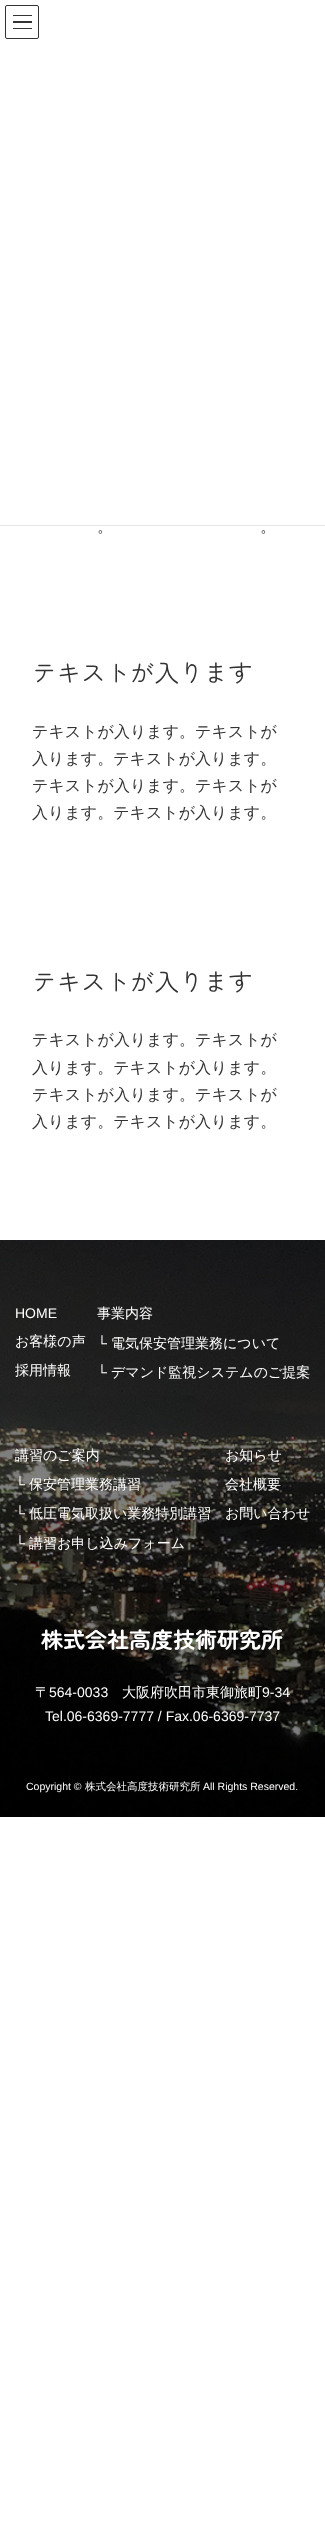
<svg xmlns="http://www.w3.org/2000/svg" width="325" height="2526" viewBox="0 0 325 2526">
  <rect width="100%" height="100%" fill="#ffffff"/>
  <rect x="13" y="15" width="19" height="1" fill="#333333"/>
  <rect x="13" y="21" width="19" height="2" fill="#333333"/>
  <rect x="13" y="28" width="19" height="1" fill="#333333"/>
  <rect x="5.5" y="5.5" width="33" height="33" rx="1.5" fill="none" stroke="#333333"/>
  <rect x="0" y="525" width="325" height="1" fill="#e5e5e5"/>
  <text x="97" y="532" font-family="WenQuanYi Zen Hei" font-size="16" font-weight="500" fill="#333333">。</text>
  <text x="260" y="532" font-family="WenQuanYi Zen Hei" font-size="16" font-weight="500" fill="#333333">。</text>
  <text x="32" y="682" font-family="Zen Maru Gothic" font-size="24.5" fill="#333333">テキストが入ります</text>
  <text x="32" y="737" font-family="WenQuanYi Zen Hei" font-size="16" font-weight="500" fill="#333333">テキストが入ります。テキストが</text>
  <text x="32" y="764" font-family="WenQuanYi Zen Hei" font-size="16" font-weight="500" fill="#333333">入ります。テキストが入ります。</text>
  <text x="32" y="791" font-family="WenQuanYi Zen Hei" font-size="16" font-weight="500" fill="#333333">テキストが入ります。テキストが</text>
  <text x="32" y="818" font-family="WenQuanYi Zen Hei" font-size="16" font-weight="500" fill="#333333">入ります。テキストが入ります。</text>
  <text x="32" y="991" font-family="Zen Maru Gothic" font-size="24.5" fill="#333333">テキストが入ります</text>
  <text x="32" y="1045" font-family="WenQuanYi Zen Hei" font-size="16" font-weight="500" fill="#333333">テキストが入ります。テキストが</text>
  <text x="32" y="1073" font-family="WenQuanYi Zen Hei" font-size="16" font-weight="500" fill="#333333">入ります。テキストが入ります。</text>
  <text x="32" y="1100" font-family="WenQuanYi Zen Hei" font-size="16" font-weight="500" fill="#333333">テキストが入ります。テキストが</text>
  <text x="32" y="1127" font-family="WenQuanYi Zen Hei" font-size="16" font-weight="500" fill="#333333">入ります。テキストが入ります。</text>
  <image x="0" y="1240" width="325" height="577" href="img1.png"/>
  <text x="15" y="1318" font-family="Liberation Sans" font-size="14" fill="#ffffff">HOME</text>
  <text x="15" y="1346" font-family="WenQuanYi Zen Hei" font-size="14" font-weight="500" fill="#ffffff">お客様の声</text>
  <text x="15" y="1375" font-family="WenQuanYi Zen Hei" font-size="14" font-weight="500" fill="#ffffff">採用情報</text>
  <text x="97" y="1318" font-family="WenQuanYi Zen Hei" font-size="14" font-weight="500" fill="#ffffff">事業内容</text>
  <text x="97" y="1348" font-family="Liberation Sans" font-size="14" fill="#ffffff">└</text>
  <text x="111" y="1348" font-family="WenQuanYi Zen Hei" font-size="14" font-weight="500" fill="#ffffff">電気保安管理業務について</text>
  <text x="97" y="1377" font-family="Liberation Sans" font-size="14" fill="#ffffff">└</text>
  <text x="111" y="1377" font-family="WenQuanYi Zen Hei" font-size="14" font-weight="500" fill="#ffffff">デマンド監視システムのご提案</text>
  <text x="15" y="1460" font-family="WenQuanYi Zen Hei" font-size="14" font-weight="500" fill="#ffffff">講習のご案内</text>
  <text x="15" y="1489" font-family="Liberation Sans" font-size="14" fill="#ffffff">└</text>
  <text x="29" y="1489" font-family="WenQuanYi Zen Hei" font-size="14" font-weight="500" fill="#ffffff">保安管理業務講習</text>
  <text x="15" y="1518" font-family="Liberation Sans" font-size="14" fill="#ffffff">└</text>
  <text x="29" y="1518" font-family="WenQuanYi Zen Hei" font-size="14" font-weight="500" fill="#ffffff">低圧電気取扱い業務特別講習</text>
  <text x="15" y="1548" font-family="Liberation Sans" font-size="14" fill="#ffffff">└</text>
  <text x="29" y="1548" font-family="WenQuanYi Zen Hei" font-size="14" font-weight="500" fill="#ffffff">講習お申し込みフォーム</text>
  <text x="225" y="1460" font-family="WenQuanYi Zen Hei" font-size="14" font-weight="500" fill="#ffffff">お知らせ</text>
  <text x="225" y="1489" font-family="WenQuanYi Zen Hei" font-size="14" font-weight="500" fill="#ffffff">会社概要</text>
  <text x="225" y="1518" font-family="WenQuanYi Zen Hei" font-size="14" font-weight="500" fill="#ffffff">お問い合わせ</text>
  <text x="41" y="1648" font-family="Zen Maru Gothic" font-size="22" font-weight="bold" fill="#ffffff">株式会社高度技術研究所</text>
  <text x="35" y="1697" font-family="WenQuanYi Zen Hei" font-size="14" font-weight="500" fill="#ffffff">〒</text>
  <text x="49" y="1697" font-family="Liberation Sans" font-size="14" fill="#ffffff">564-0033</text>
  <text x="122" y="1697" font-family="WenQuanYi Zen Hei" font-size="14" font-weight="500" fill="#ffffff">大阪府吹田市東御旅町</text>
  <text x="262" y="1697" font-family="Liberation Sans" font-size="14" fill="#ffffff">9-34</text>
  <text x="45" y="1721" font-family="Liberation Sans" font-size="14" fill="#ffffff">Tel.06-6369-7777 / Fax.06-6369-7737</text>
  <text x="26" y="1790" font-family="Liberation Sans" font-size="10.5" fill="#ffffff">Copyright ©</text>
  <text x="85" y="1790" font-family="WenQuanYi Zen Hei" font-size="10.5" font-weight="500" fill="#ffffff">株式会社高度技術研究所</text>
  <text x="203" y="1790" font-family="Liberation Sans" font-size="10.5" fill="#ffffff">All Rights Reserved.</text>
</svg>
